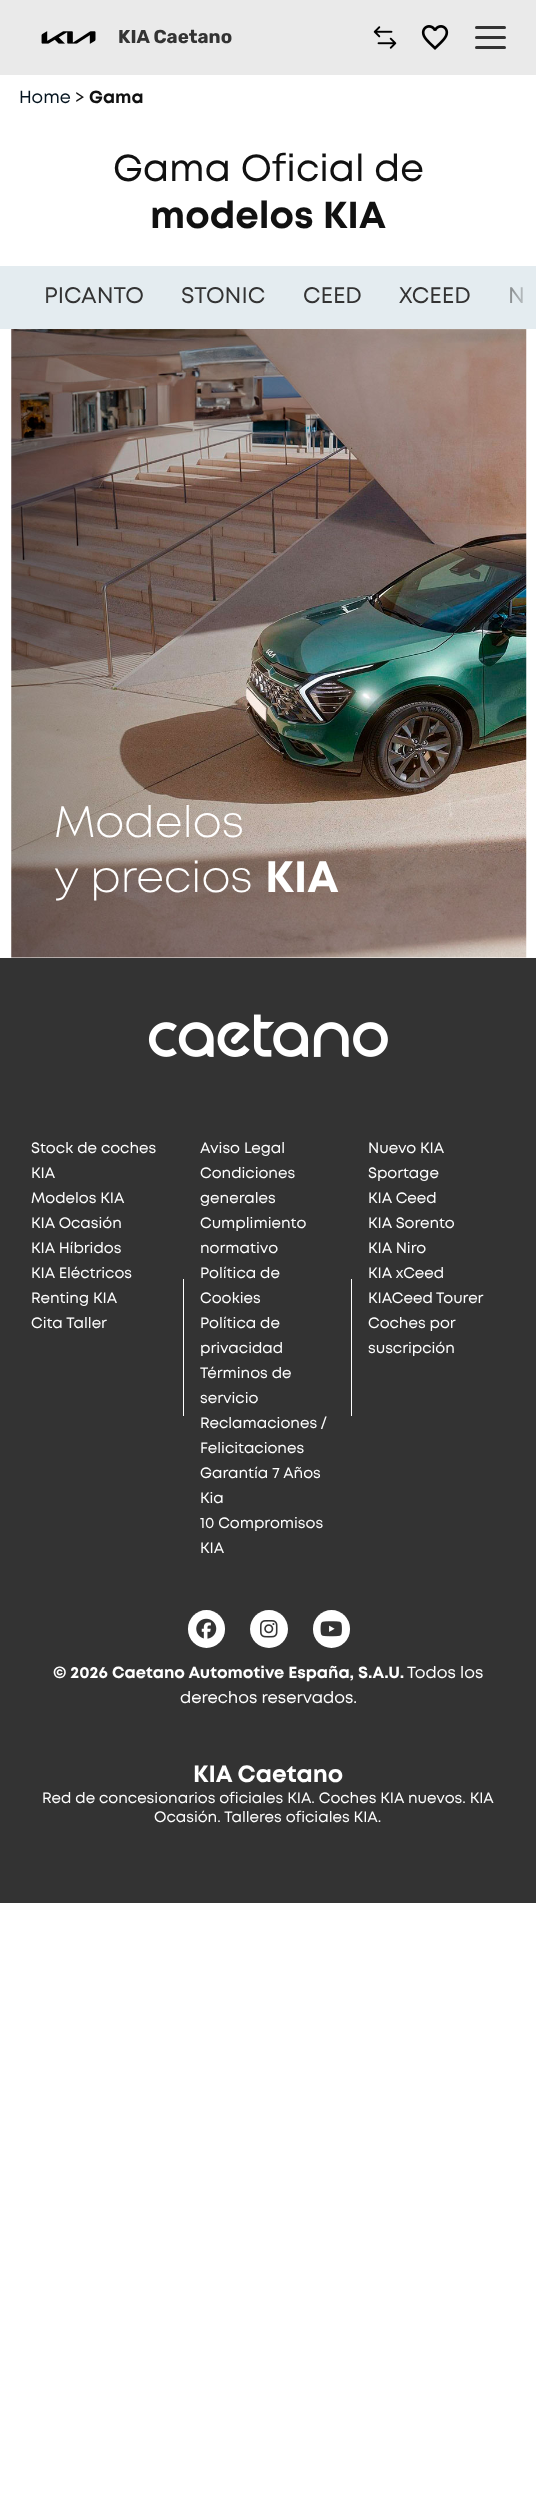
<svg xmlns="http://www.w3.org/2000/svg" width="536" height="2505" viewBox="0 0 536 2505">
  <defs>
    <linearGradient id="g1" gradientUnits="userSpaceOnUse" x1="0" y1="298" x2="50" y2="298"><stop offset="0" stop-color="#e4ecf0"/><stop offset="1" stop-color="#e4ecf0" stop-opacity="0"/></linearGradient>
    <linearGradient id="g2" gradientUnits="userSpaceOnUse" x1="486" y1="298" x2="536" y2="298"><stop offset="0" stop-color="#e4ecf0" stop-opacity="0"/><stop offset="1" stop-color="#e4ecf0"/></linearGradient>
  </defs>
  <rect width="100%" height="100%" fill="#ffffff"/>
  <rect x="0" y="0" width="536" height="75" fill="#eaeaea"/>
  <image x="41" y="31" width="55" height="13" href="img1.png"/>
  <text x="118" y="43" font-family="Rubik" font-size="18.75" font-weight="bold" fill="#333333">KIA Caetano</text>
  <image x="373" y="26" width="24" height="23" href="img2.png"/>
  <image x="421" y="25" width="28" height="25" href="img3.png"/>
  <rect x="475" y="26" width="31" height="3" rx="1.5" fill="#333333"/>
  <rect x="475" y="36" width="31" height="3" rx="1.5" fill="#333333"/>
  <rect x="475" y="46" width="31" height="3" rx="1.5" fill="#333333"/>
  <text x="19" y="103" font-family="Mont" font-size="17.5" fill="#05141f">Home</text>
  <text x="75" y="103" font-family="Mont" font-size="17.5" fill="#111111">&gt;</text>
  <text x="89" y="103" font-family="Mont" font-size="17.5" font-weight="bold" fill="#111111">Gama</text>
  <text x="113" y="181" font-family="Mont" font-size="37.5" fill="#111111">Gama Oficial de</text>
  <text x="150" y="228" font-family="Mont" font-size="37.5" font-weight="bold" fill="#111111">modelos KIA</text>
  <rect x="0" y="266" width="536" height="63" fill="#e4ecf0"/>
  <text x="44" y="303" font-family="Mont" font-size="22.5" fill="#333333">PICANTO</text>
  <text x="181" y="303" font-family="Mont" font-size="22.5" fill="#333333">STONIC</text>
  <text x="303" y="303" font-family="Mont" font-size="22.5" fill="#333333">CEED</text>
  <text x="399" y="303" font-family="Mont" font-size="22.5" fill="#333333">XCEED</text>
  <text x="508" y="303" font-family="Mont" font-size="22.5" fill="#333333">N</text>
  <rect x="46" y="287" width="3" height="16" fill="url(#g1)"/>
  <rect x="510" y="287" width="14" height="16" fill="url(#g2)"/>
  <image x="11" y="329" width="516" height="629" href="img4.png"/>
  <text x="54" y="837" font-family="Mont" font-size="43.75" font-weight="300" fill="#ffffff">Modelos</text>
  <text x="54" y="892" font-family="Mont" font-size="43.75" font-weight="300" fill="#ffffff">y precios</text>
  <text x="265" y="892" font-family="Mont" font-size="43.75" font-weight="bold" fill="#ffffff">KIA</text>
  <rect x="0" y="958" width="536" height="945" fill="#333333"/>
  <image x="148" y="1014" width="240" height="43" href="img5.png"/>
  <text x="31" y="1153" font-family="Mont" font-size="15" fill="#ffffff">Stock de coches</text>
  <text x="31" y="1178" font-family="Mont" font-size="15" fill="#ffffff">KIA</text>
  <text x="31" y="1203" font-family="Mont" font-size="15" fill="#ffffff">Modelos KIA</text>
  <text x="31" y="1228" font-family="Mont" font-size="15" fill="#ffffff">KIA Ocasión</text>
  <text x="31" y="1253" font-family="Mont" font-size="15" fill="#ffffff">KIA Híbridos</text>
  <text x="31" y="1278" font-family="Mont" font-size="15" fill="#ffffff">KIA Eléctricos</text>
  <text x="31" y="1303" font-family="Mont" font-size="15" fill="#ffffff">Renting KIA</text>
  <text x="31" y="1328" font-family="Mont" font-size="15" fill="#ffffff">Cita Taller</text>
  <rect x="183" y="1279" width="1" height="137" fill="#ffffff"/>
  <text x="200" y="1153" font-family="Mont" font-size="15" fill="#ffffff">Aviso Legal</text>
  <text x="200" y="1178" font-family="Mont" font-size="15" fill="#ffffff">Condiciones</text>
  <text x="200" y="1203" font-family="Mont" font-size="15" fill="#ffffff">generales</text>
  <text x="200" y="1228" font-family="Mont" font-size="15" fill="#ffffff">Cumplimiento</text>
  <text x="200" y="1253" font-family="Mont" font-size="15" fill="#ffffff">normativo</text>
  <text x="200" y="1278" font-family="Mont" font-size="15" fill="#ffffff">Política de</text>
  <text x="200" y="1303" font-family="Mont" font-size="15" fill="#ffffff">Cookies</text>
  <text x="200" y="1328" font-family="Mont" font-size="15" fill="#ffffff">Política de</text>
  <text x="200" y="1353" font-family="Mont" font-size="15" fill="#ffffff">privacidad</text>
  <text x="200" y="1378" font-family="Mont" font-size="15" fill="#ffffff">Términos de</text>
  <text x="200" y="1403" font-family="Mont" font-size="15" fill="#ffffff">servicio</text>
  <text x="200" y="1428" font-family="Mont" font-size="15" fill="#ffffff">Reclamaciones /</text>
  <text x="200" y="1453" font-family="Mont" font-size="15" fill="#ffffff">Felicitaciones</text>
  <text x="200" y="1478" font-family="Mont" font-size="15" fill="#ffffff">Garantía 7 Años</text>
  <text x="200" y="1503" font-family="Mont" font-size="15" fill="#ffffff">Kia</text>
  <text x="200" y="1528" font-family="Mont" font-size="15" fill="#ffffff">10 Compromisos</text>
  <text x="200" y="1553" font-family="Mont" font-size="15" fill="#ffffff">KIA</text>
  <rect x="351" y="1279" width="1" height="137" fill="#ffffff"/>
  <text x="368" y="1153" font-family="Mont" font-size="15" fill="#ffffff">Nuevo KIA</text>
  <text x="368" y="1178" font-family="Mont" font-size="15" fill="#ffffff">Sportage</text>
  <text x="368" y="1203" font-family="Mont" font-size="15" fill="#ffffff">KIA Ceed</text>
  <text x="368" y="1228" font-family="Mont" font-size="15" fill="#ffffff">KIA Sorento</text>
  <text x="368" y="1253" font-family="Mont" font-size="15" fill="#ffffff">KIA Niro</text>
  <text x="368" y="1278" font-family="Mont" font-size="15" fill="#ffffff">KIA xCeed</text>
  <text x="368" y="1303" font-family="Mont" font-size="15" fill="#ffffff">KIACeed</text>
  <text x="436" y="1303" font-family="Mont" font-size="15" fill="#ffffff">Tourer</text>
  <text x="368" y="1328" font-family="Mont" font-size="15" fill="#ffffff">Coches por</text>
  <text x="368" y="1353" font-family="Mont" font-size="15" fill="#ffffff">suscripción</text>
  <rect x="188" y="1610" width="37" height="38" rx="18.5" fill="#ffffff"/>
  <image x="196" y="1618" width="21" height="21" href="img6.png"/>
  <circle cx="269" cy="1629" r="19" fill="#ffffff"/>
  <image x="260" y="1620" width="18" height="18" href="img7.png"/>
  <rect x="313" y="1610" width="37" height="38" rx="18.5" fill="#ffffff"/>
  <image x="320" y="1621" width="22" height="16" href="img8.png"/>
  <text x="53" y="1678" font-family="Mont" font-size="16.25" font-weight="bold" fill="#ffffff">© 2026</text>
  <text x="112" y="1678" font-family="Mont" font-size="16.25" font-weight="bold" fill="#ffffff">Caetano Automotive España, S.A.U.</text>
  <text x="407" y="1678" font-family="Mont" font-size="16.25" fill="#ffffff">Todos los</text>
  <text x="180" y="1703" font-family="Mont" font-size="16.25" fill="#ffffff">derechos reservados.</text>
  <text x="193" y="1782" font-family="Mont" font-size="23.5" font-weight="bold" fill="#ffffff">KIA Caetano</text>
  <text x="42" y="1803" font-family="Mont" font-size="15" fill="#ffffff">Red de concesionarios oficiales KIA. Coches KIA nuevos. KIA</text>
  <text x="154" y="1822" font-family="Mont" font-size="15" fill="#ffffff">Ocasión. Talleres oficiales KIA.</text>
</svg>
